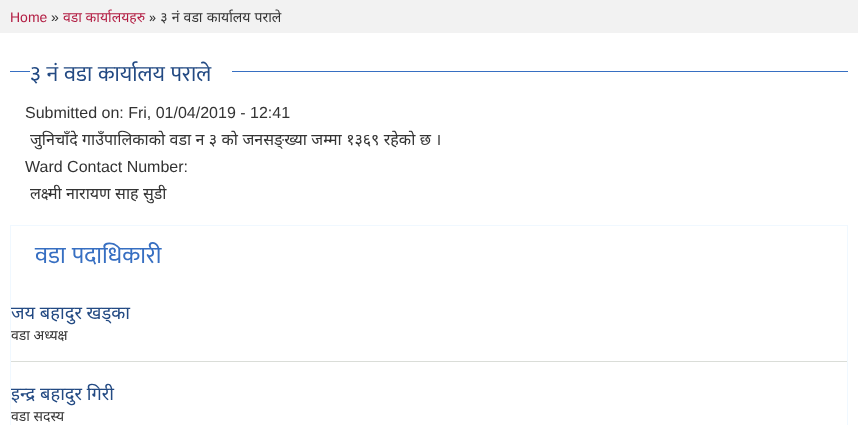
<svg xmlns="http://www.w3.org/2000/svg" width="858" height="425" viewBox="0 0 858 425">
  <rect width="100%" height="100%" fill="#ffffff"/>
  <rect x="0" y="0" width="858" height="33" fill="#f2f2f2"/>
  <text x="10" y="22" font-family="Liberation Sans" font-size="14" fill="#b21c42">Home</text>
  <text x="51" y="22" font-family="Liberation Sans" font-size="14" fill="#333333">»</text>
  <text x="63" y="22" font-family="Noto Sans" font-size="14" fill="#b21c42">वडा कार्यालयहरु</text>
  <text x="149" y="22" word-spacing="0.5" font-family="Noto Sans" font-size="14" fill="#333333">» ३ नं वडा कार्यालय पराले</text>
  <rect x="10" y="71" width="838" height="1" fill="#376fc2"/>
  <rect x="30" y="71" width="202" height="1" fill="#ffffff"/>
  <text x="30" y="81" word-spacing="1" font-family="Mukta" font-size="22" fill="#234a83">३ नं वडा कार्यालय पराले</text>
  <text x="25" y="118" font-family="Liberation Sans" font-size="16" fill="#333333">Submitted on: Fri, 01/04/2019 - 12:41</text>
  <text x="30" y="145" word-spacing="0.25" font-family="Noto Sans" font-size="16" fill="#333333">जुनिचाँदे गाउँपालिकाको वडा न ३ को जनसङ्ख्या जम्मा १३६९ रहेको छ ।</text>
  <text x="25" y="172" font-family="Liberation Sans" font-size="16" fill="#333333">Ward Contact Number:</text>
  <text x="30" y="199" word-spacing="0.25" font-family="Noto Sans" font-size="16" fill="#333333">लक्ष्मी नारायण साह सुडी</text>
  <rect x="10.5" y="225.5" width="837" height="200" fill="none" stroke="#f0f8ff"/>
  <text x="35" y="263" word-spacing="1" font-family="Mukta" font-size="24" fill="#376fc2">वडा पदाधिकारी</text>
  <rect x="11" y="361" width="836" height="1" fill="#daddd8"/>
  <text x="11" y="319" font-family="Noto Sans" font-size="18.25" fill="#234a83">जय बहादुर खड्का</text>
  <text x="11" y="340" font-family="Noto Sans" font-size="14" fill="#333333">वडा अध्यक्ष</text>
  <text x="11" y="400" font-family="Noto Sans" font-size="18.25" fill="#234a83">इन्द्र बहादुर गिरी</text>
  <text x="11" y="421" font-family="Noto Sans" font-size="14" fill="#333333">वडा सदस्य</text>
</svg>
